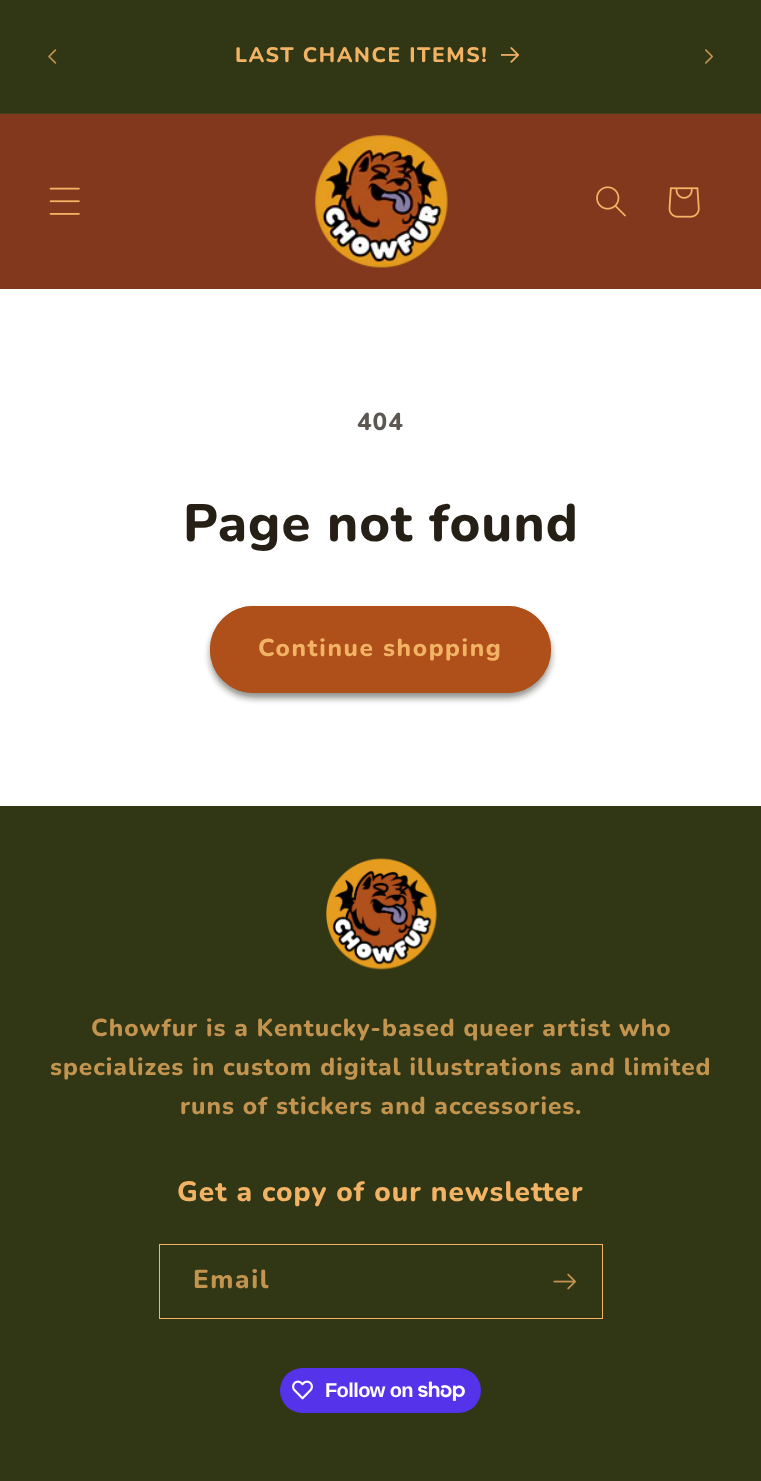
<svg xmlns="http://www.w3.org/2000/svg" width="761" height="1481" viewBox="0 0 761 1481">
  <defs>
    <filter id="blur1" x="-50%" y="-200%" width="200%" height="500%"><feGaussianBlur stdDeviation="3"/></filter>
  </defs>
  <rect width="100%" height="100%" fill="#ffffff"/>
  <rect x="0" y="0" width="761" height="113" fill="#313715"/>
  <rect x="0" y="113" width="761" height="1" fill="#41411b"/>
  <image x="48" y="49" width="9" height="15" href="img1.png"/>
  <text x="235" y="62" font-family="Nunito" font-size="21" font-weight="800" letter-spacing="1.6" fill="#f3b364">LAST CHANCE ITEMS!</text>
  <image x="501" y="47" width="18" height="16" href="img2.png"/>
  <image x="705" y="49" width="8" height="15" href="img3.png"/>
  <rect x="0" y="114" width="761" height="175" fill="#82381d"/>
  <image x="49" y="187" width="31" height="28" href="img4.png"/>
  <image x="314" y="134" width="134" height="134" href="img5.png"/>
  <image x="596" y="186" width="30" height="31" href="img6.png"/>
  <image x="668" y="187" width="32" height="31" href="img7.png"/>
  <text x="357" y="430" font-family="Nunito" font-size="24.4" font-weight="800" letter-spacing="0.98" fill="#5c5750">404</text>
  <text x="183" y="541" font-family="Nunito" font-size="52.5" font-weight="800" letter-spacing="1.05" fill="#251f16">Page not found</text>
  <rect x="210" y="611" width="341" height="87" rx="43.5" fill="#251f16" fill-opacity="0.5" filter="url(#blur1)"/>
  <rect x="210" y="606" width="341" height="87" rx="43.5" fill="#af4f1a"/>
  <rect x="213" y="609" width="335" height="81" rx="40.5" fill="none" stroke="#af4f1a" stroke-width="6"/>
  <text x="258" y="656" font-family="Nunito" font-size="24.4" font-weight="800" letter-spacing="1.6" fill="#f3b364">Continue shopping</text>
  <rect x="0" y="806" width="761" height="675" fill="#313715"/>
  <image x="326" y="858" width="111" height="112" href="img8.png"/>
  <text x="91" y="1036" font-family="Nunito" font-size="24.4" font-weight="800" letter-spacing="0.98" fill="#c39450">Chowfur is a Kentucky-based queer artist who</text>
  <text x="50" y="1075" font-family="Nunito" font-size="24.4" font-weight="800" letter-spacing="0.98" fill="#c39450">specializes in custom digital illustrations and limited</text>
  <text x="180" y="1114" font-family="Nunito" font-size="24.4" font-weight="800" letter-spacing="0.98" fill="#c39450">runs of stickers and accessories.</text>
  <text x="177" y="1201" font-family="Nunito" font-size="28" font-weight="800" letter-spacing="1.05" fill="#f3b364">Get a copy of our newsletter</text>
  <rect x="159.5" y="1244.5" width="443" height="74" fill="none" stroke="#f3b364"/>
  <text x="193" y="1288" font-family="Nunito" font-size="26" font-weight="800" letter-spacing="1.6" fill="#c39450">Email</text>
  <image x="553" y="1273" width="23" height="17" href="img9.png"/>
  <rect x="280" y="1368" width="201" height="45" rx="22.5" fill="#5433eb"/>
  <image x="292" y="1380" width="21" height="20" href="img10.png"/>
  <text x="325" y="1397" font-family="Liberation Sans" font-size="20" font-weight="bold" letter-spacing="-0.6" fill="#ffffff">Follow on</text>
  <image x="418" y="1381" width="47" height="20" href="img11.png"/>
</svg>
